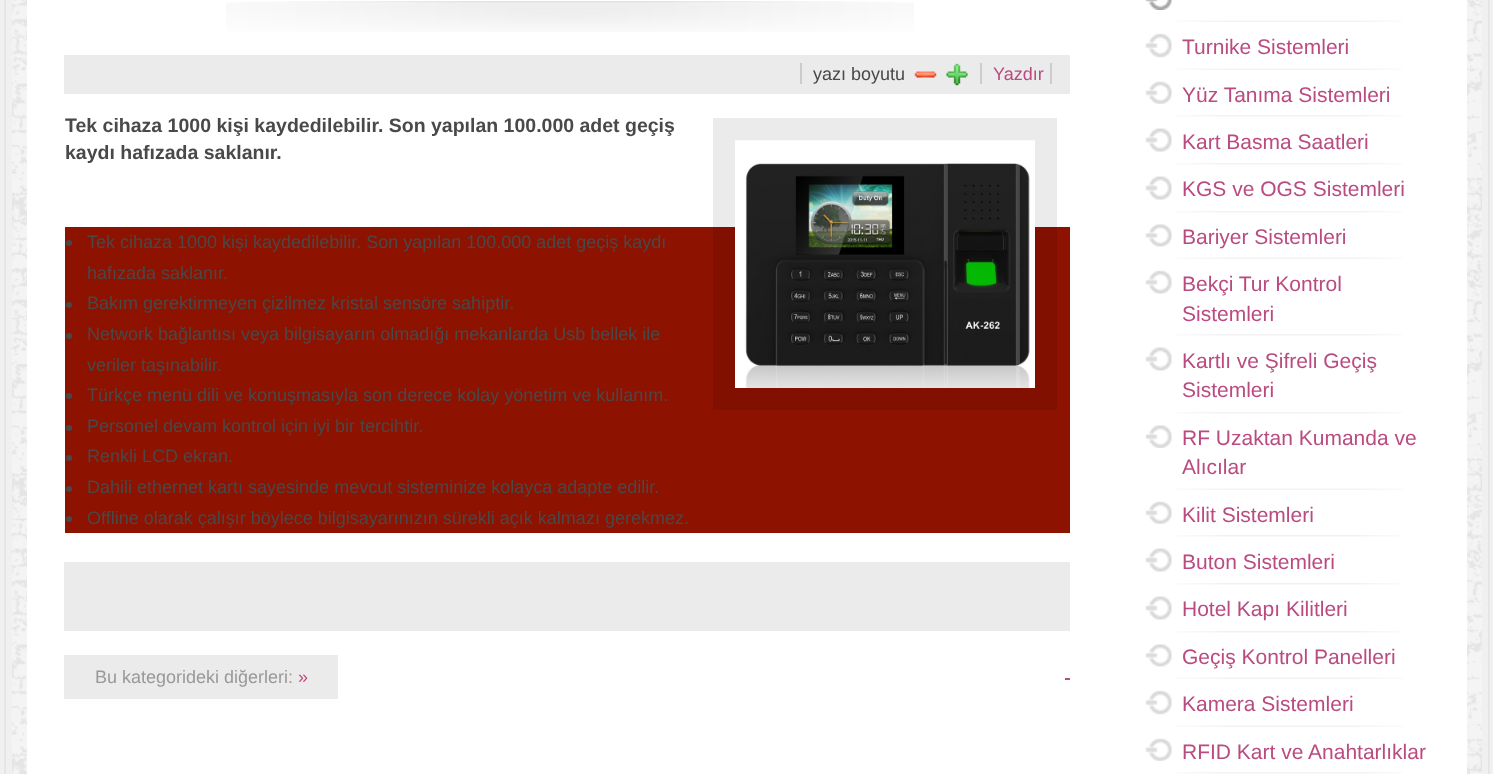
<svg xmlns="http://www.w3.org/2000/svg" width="1493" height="774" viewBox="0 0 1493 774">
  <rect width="100%" height="100%" fill="#f0f0f0"/>
  <rect x="12" y="0" width="1470" height="774" fill="#f4f4f4"/>
  <image x="12" y="0" width="1470" height="774" href="img1.png"/>
  <image x="4" y="0" width="2" height="774" href="img2.png"/>
  <image x="1488" y="0" width="2" height="774" href="img3.png"/>
  <rect x="27" y="0" width="1440" height="774" fill="#ffffff"/>
  <image x="226" y="1" width="688" height="31" href="img4.png"/>
  <rect x="64" y="55" width="1006" height="39" fill="#ebebeb"/>
  <text x="813" y="80" font-family="Liberation Sans" font-size="18" fill="#4a4848">yazı boyutu</text>
  <rect x="800" y="63" width="2" height="21" fill="#cccccc"/>
  <image x="914" y="71" width="23" height="7" href="img5.png"/>
  <image x="946" y="63" width="22" height="23" href="img6.png"/>
  <text x="993" y="80" font-family="Liberation Sans" font-size="18" fill="#ba4b81">Yazdır</text>
  <rect x="980" y="63" width="2" height="21" fill="#cccccc"/>
  <rect x="1050" y="63" width="2" height="21" fill="#cccccc"/>
  <text x="65" y="132" font-family="Liberation Sans" font-size="19.5" font-weight="bold" fill="#4a4848">Tek cihaza 1000 kişi kaydedilebilir. Son yapılan 100.000 adet geçiş</text>
  <text x="65" y="159" font-family="Liberation Sans" font-size="19.5" font-weight="bold" fill="#4a4848">kaydı hafızada saklanır.</text>
  <rect x="65" y="227" width="1005" height="306" fill="#8e1200"/>
  <image x="713" y="118" width="344" height="292" href="img7.png"/>
  <rect x="735" y="140" width="300" height="1" fill="#fafafa"/>
  <circle cx="69" cy="243" r="3" fill="#4a4848"/>
  <text x="87" y="248" font-family="Liberation Sans" font-size="18" fill="#4a4848">Tek cihaza 1000 kişi kaydedilebilir. Son yapılan 100.000 adet geçiş kaydı</text>
  <text x="87" y="279" font-family="Liberation Sans" font-size="18" fill="#4a4848">hafızada saklanır.</text>
  <circle cx="69" cy="305" r="3" fill="#4a4848"/>
  <text x="87" y="309" font-family="Liberation Sans" font-size="18" fill="#4a4848">Bakım gerektirmeyen çizilmez kristal sensöre sahiptir.</text>
  <circle cx="69" cy="336" r="3" fill="#4a4848"/>
  <text x="87" y="340" font-family="Liberation Sans" font-size="18" fill="#4a4848">Network bağlantısı veya bilgisayarın olmadığı mekanlarda Usb bellek ile</text>
  <text x="87" y="371" font-family="Liberation Sans" font-size="18" fill="#4a4848">veriler taşınabilir.</text>
  <circle cx="69" cy="396" r="3" fill="#4a4848"/>
  <text x="87" y="401" font-family="Liberation Sans" font-size="18" fill="#4a4848">Türkçe menü dili ve konuşmasıyla son derece kolay yönetim ve kullanım.</text>
  <circle cx="69" cy="428" r="3" fill="#4a4848"/>
  <text x="87" y="432" font-family="Liberation Sans" font-size="18" fill="#4a4848">Personel devam kontrol için iyi bir tercihtir.</text>
  <circle cx="69" cy="458" r="3" fill="#4a4848"/>
  <text x="87" y="462" font-family="Liberation Sans" font-size="18" fill="#4a4848">Renkli LCD ekran.</text>
  <circle cx="69" cy="489" r="3" fill="#4a4848"/>
  <text x="87" y="493" font-family="Liberation Sans" font-size="18" fill="#4a4848">Dahili ethernet kartı sayesinde mevcut sisteminize kolayca adapte edilir.</text>
  <circle cx="69" cy="519" r="3" fill="#4a4848"/>
  <text x="87" y="524" font-family="Liberation Sans" font-size="18" fill="#4a4848">Offline olarak çalışır böylece bilgisayarınızın sürekli açık kalmazı gerekmez.</text>
  <rect x="64" y="562" width="1006" height="69" fill="#ebebeb"/>
  <rect x="64" y="655" width="274" height="44" fill="#ebebeb"/>
  <text x="95" y="683" font-family="Liberation Sans" font-size="18" fill="#999999">Bu kategorideki diğerleri:</text>
  <text x="298" y="683" font-family="Liberation Sans" font-size="18" fill="#ba4b81">»</text>
  <rect x="1065" y="678" width="5" height="2" fill="#ba4b81"/>
  <image x="1176" y="20" width="227" height="2" href="img8.png"/>
  <image x="1145" y="0" width="27" height="10" href="img9.png"/>
  <image x="1176" y="68" width="227" height="2" href="img8.png"/>
  <image x="1145" y="33" width="27" height="25" href="img10.png"/>
  <text x="1182" y="54" font-family="Liberation Sans" font-size="21" fill="#ba4b81">Turnike Sistemleri</text>
  <image x="1177" y="115" width="225" height="2" href="img11.png"/>
  <image x="1145" y="81" width="27" height="23" href="img12.png"/>
  <text x="1182" y="102" font-family="Liberation Sans" font-size="21" fill="#ba4b81">Yüz Tanıma Sistemleri</text>
  <image x="1177" y="163" width="225" height="2" href="img11.png"/>
  <image x="1145" y="128" width="27" height="24" href="img13.png"/>
  <text x="1182" y="149" font-family="Liberation Sans" font-size="21" fill="#ba4b81">Kart Basma Saatleri</text>
  <image x="1177" y="211" width="225" height="2" href="img11.png"/>
  <image x="1145" y="176" width="27" height="24" href="img13.png"/>
  <text x="1182" y="196" font-family="Liberation Sans" font-size="21" fill="#ba4b81">KGS ve OGS Sistemleri</text>
  <image x="1176" y="257" width="227" height="2" href="img8.png"/>
  <image x="1145" y="224" width="27" height="23" href="img14.png"/>
  <text x="1182" y="244" font-family="Liberation Sans" font-size="21" fill="#ba4b81">Bariyer Sistemleri</text>
  <image x="1177" y="334" width="225" height="2" href="img11.png"/>
  <image x="1145" y="270" width="27" height="24" href="img15.png"/>
  <text x="1182" y="291" font-family="Liberation Sans" font-size="21" fill="#ba4b81">Bekçi Tur Kontrol</text>
  <text x="1182" y="321" font-family="Liberation Sans" font-size="21" fill="#ba4b81">Sistemleri</text>
  <image x="1177" y="412" width="225" height="2" href="img11.png"/>
  <image x="1145" y="347" width="27" height="24" href="img13.png"/>
  <text x="1182" y="368" font-family="Liberation Sans" font-size="21" fill="#ba4b81">Kartlı ve Şifreli Geçiş</text>
  <text x="1182" y="397" font-family="Liberation Sans" font-size="21" fill="#ba4b81">Sistemleri</text>
  <image x="1176" y="488" width="227" height="2" href="img8.png"/>
  <image x="1145" y="425" width="27" height="23" href="img16.png"/>
  <text x="1182" y="445" font-family="Liberation Sans" font-size="21" fill="#ba4b81">RF Uzaktan Kumanda ve</text>
  <text x="1182" y="474" font-family="Liberation Sans" font-size="21" fill="#ba4b81">Alıcılar</text>
  <image x="1177" y="535" width="225" height="2" href="img11.png"/>
  <image x="1145" y="501" width="27" height="23" href="img12.png"/>
  <text x="1182" y="522" font-family="Liberation Sans" font-size="21" fill="#ba4b81">Kilit Sistemleri</text>
  <image x="1177" y="583" width="225" height="2" href="img11.png"/>
  <image x="1145" y="548" width="27" height="24" href="img13.png"/>
  <text x="1182" y="569" font-family="Liberation Sans" font-size="21" fill="#ba4b81">Buton Sistemleri</text>
  <image x="1177" y="631" width="225" height="2" href="img11.png"/>
  <image x="1145" y="596" width="27" height="24" href="img13.png"/>
  <text x="1182" y="616" font-family="Liberation Sans" font-size="21" fill="#ba4b81">Hotel Kapı Kilitleri</text>
  <image x="1176" y="677" width="227" height="2" href="img8.png"/>
  <image x="1145" y="644" width="27" height="23" href="img14.png"/>
  <text x="1182" y="664" font-family="Liberation Sans" font-size="21" fill="#ba4b81">Geçiş Kontrol Panelleri</text>
  <image x="1176" y="725" width="227" height="2" href="img8.png"/>
  <image x="1145" y="690" width="27" height="25" href="img10.png"/>
  <text x="1182" y="711" font-family="Liberation Sans" font-size="21" fill="#ba4b81">Kamera Sistemleri</text>
  <image x="1177" y="772" width="225" height="2" href="img11.png"/>
  <image x="1145" y="738" width="27" height="23" href="img12.png"/>
  <text x="1182" y="759" font-family="Liberation Sans" font-size="21" fill="#ba4b81">RFID Kart ve Anahtarlıklar</text>
</svg>
